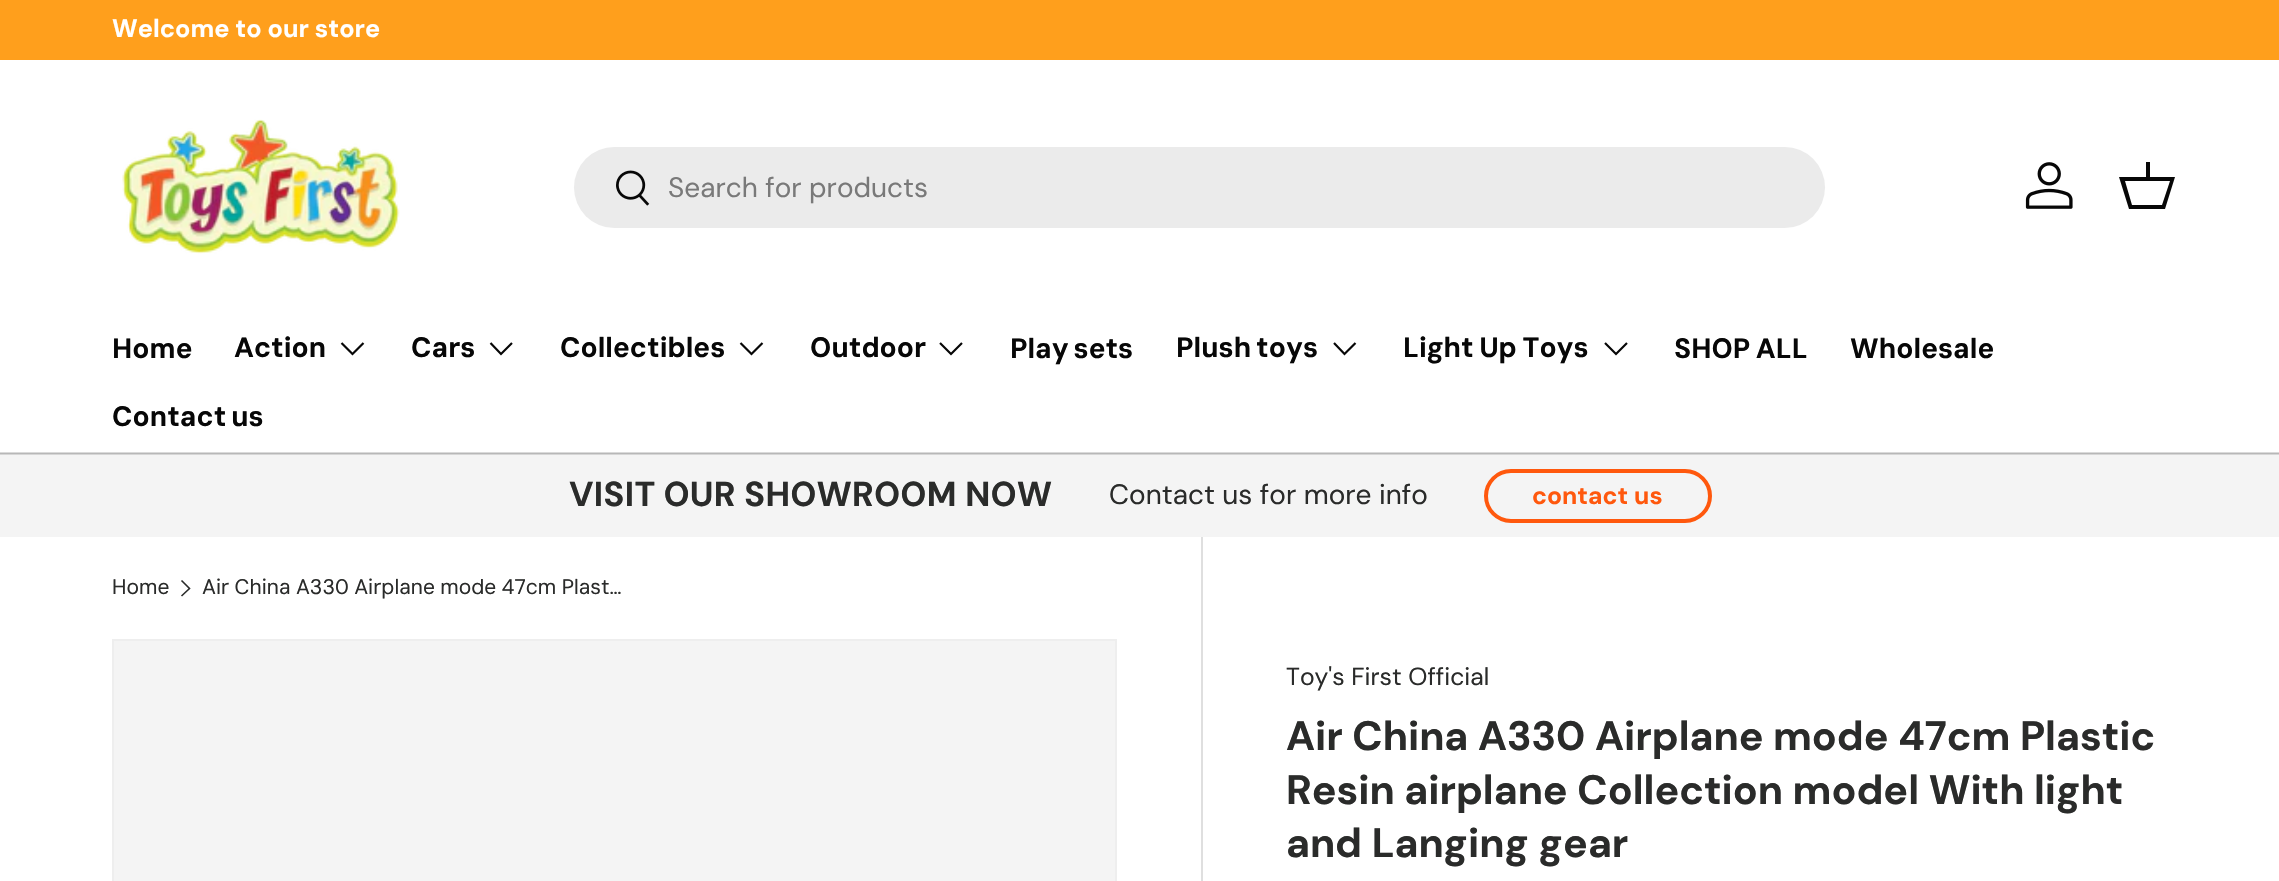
void draw(SkCanvas* canvas) {
    SkPaint paint;
    paint.setAntiAlias(true);
    auto face = [&](const char* family, int weight, float size, bool italic = false) {
        SkFontStyle style(weight, SkFontStyle::kNormal_Width,
            italic ? SkFontStyle::kItalic_Slant : SkFontStyle::kUpright_Slant);
        SkFont result(fontMgr->matchFamilyStyle(family, style), size);
        result.setSubpixel(true);
        return result;
    };
    auto write = [&](const char* s, float x, float y, const SkFont& font, SkColor color) {
        SkPaint ink(SkColor4f::FromColor(color));
        ink.setAntiAlias(true);
        canvas->drawString(s, x, y, font, ink);
    };
    auto writeSpaced = [&](const char* s, float x, float y, const SkFont& font, const SkPaint& ink, float letter, float word) {
        std::vector<SkGlyphID> glyphs(font.countText(s, strlen(s), SkTextEncoding::kUTF8));
        std::vector<float> xs(glyphs.size());
        font.textToGlyphs(s, strlen(s), SkTextEncoding::kUTF8, glyphs);
        font.getXPos(glyphs, xs, x);
        float extra = 0;
        for (size_t i = 0; i < glyphs.size(); i++) {
            xs[i] += extra;
            extra += letter + word * (glyphs[i] == font.unicharToGlyph(' '));
        }
        canvas->drawTextBlob(SkTextBlob::MakeFromPosHGlyphs(glyphs, xs, y, font), 0, 0, ink);
    };
    auto block = [&](float x, float y, float w, float h, SkColor color) {
        SkPaint ink(SkColor4f::FromColor(color));
        ink.setAntiAlias(true);
        canvas->drawRect(SkRect::MakeXYWH(x, y, w, h), ink);
    };
    auto card = [&](float x, float y, float w, float h, float radius, SkColor color) {
        SkPaint ink(SkColor4f::FromColor(color));
        ink.setAntiAlias(true);
        canvas->drawRoundRect(SkRect::MakeXYWH(x, y, w, h), radius, radius, ink);
    };
    auto paste = [&](const char* path, float x, float y, float w, float h) {
        auto image = SkImages::DeferredFromEncodedData(SkData::MakeFromFileName(path));
        canvas->drawImageRect(image, SkRect::MakeXYWH(x, y, w, h), SkSamplingOptions());
    };
    canvas->clear(SK_ColorWHITE);
    block(0, 452, 2279, 1, SkColorSetRGB(218, 218, 218));
    block(0, 0, 2279, 60, SkColorSetRGB(255, 159, 28));
    auto kFont1 = face("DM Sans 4", 700, 25.25f);
    write("Welcome to our store", 112, 37, kFont1, SK_ColorWHITE);
    paste("pic1.png", 122, 119, 278, 135);
    card(574, 147, 1251, 81, 40.5f, SkColorSetRGB(235, 235, 235));
    paste("pic2.png", 616, 170, 34, 36);
    auto kFont2 = face("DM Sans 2", 400, 28);
    write("Search for products", 668, 197, kFont2, SkColorSetRGB(121, 121, 121));
    paste("pic3.png", 2025, 162, 48, 47);
    paint.setColor(SkColorSetRGB(7, 7, 7));
    canvas->drawPath(SkPathBuilder().moveTo(2146, 177).lineTo(2146, 162).lineTo(2150, 162).lineTo(2150, 177).lineTo(2175, 177).lineTo(2165, 209).lineTo(2129, 209).lineTo(2119, 177).close().moveTo(2125, 181).lineTo(2132, 205).lineTo(2162, 205).lineTo(2170, 181).close().detach(), paint);
    auto kFont3 = face("DM Sans", 700, 28);
    write("Home", 112, 358, kFont3, SkColorSetRGB(7, 7, 7));
    write("Action", 234, 357, kFont3, SkColorSetRGB(7, 7, 7));
    paint.setStyle(SkPaint::kStroke_Style);
    paint.setStrokeWidth(2.2f);
    canvas->drawPath(SkPathBuilder().moveTo(363.5f, 343).lineTo(352.5f, 354).lineTo(341.5f, 343).detach(), paint);
    write("Cars", 411, 357, kFont3, SkColorSetRGB(7, 7, 7));
    canvas->drawPath(SkPathBuilder().moveTo(512, 343).lineTo(501, 354).lineTo(490.5f, 343).detach(), paint);
    write("Collectibles", 560, 357, kFont3, SkColorSetRGB(7, 7, 7));
    canvas->drawPath(SkPathBuilder().moveTo(762.5f, 343).lineTo(751.5f, 354).lineTo(740.5f, 343).detach(), paint);
    write("Outdoor", 810, 357, kFont3, SkColorSetRGB(7, 7, 7));
    canvas->drawPath(SkPathBuilder().moveTo(962, 343).lineTo(951, 354).lineTo(940, 343).detach(), paint);
    paint.setStyle(SkPaint::kFill_Style);
    writeSpaced("Play sets", 1010, 358, kFont3, paint, 0, -2);
    writeSpaced("Plush toys", 1176, 357, kFont3, paint, 0, -2);
    paint.setStyle(SkPaint::kStroke_Style);
    canvas->drawPath(SkPathBuilder().moveTo(1355.5f, 343).lineTo(1344.5f, 354).lineTo(1334, 343).detach(), paint);
    paint.setStyle(SkPaint::kFill_Style);
    writeSpaced("Light Up Toys", 1403, 357, kFont3, paint, 0, -1);
    paint.setStyle(SkPaint::kStroke_Style);
    canvas->drawPath(SkPathBuilder().moveTo(1627, 343).lineTo(1616, 354).lineTo(1605, 343).detach(), paint);
    paint.setStyle(SkPaint::kFill_Style);
    writeSpaced("SHOP ALL", 1674, 358, kFont3, paint, 0, -1);
    write("Wholesale", 1850, 358, kFont3, SkColorSetRGB(7, 7, 7));
    writeSpaced("Contact us", 112, 426, kFont3, paint, 0, -2);
    block(0, 455, 2279, 82, SkColorSetRGB(244, 244, 244));
    block(0, 454, 2279, 1, SkColorSetRGB(214, 214, 214));
    block(0, 453, 2279, 1, SkColorSetRGB(183, 183, 183));
    auto kFont4 = face("DM Sans", 700, 34.6f);
    write("VISIT OUR SHOWROOM NOW", 569, 506, kFont4, SkColorSetRGB(42, 43, 42));
    write("Contact us for more info", 1109, 504, kFont2, SkColorSetRGB(42, 43, 42));
    paint.setStyle(SkPaint::kStroke_Style);
    paint.setStrokeWidth(4);
    paint.setColor(SkColorSetRGB(255, 88, 13));
    canvas->drawRoundRect(SkRect::MakeXYWH(1486, 471, 224, 50), 25, 25, paint);
    auto kFont5 = face("DM Sans 2", 700, 24.75f);
    write("contact us", 1532, 504, kFont5, SkColorSetRGB(255, 88, 13));
    auto kFont6 = face("DM Sans", 400, 21);
    write("Home", 112, 594, kFont6, SkColorSetRGB(42, 43, 42));
    paint.setStrokeWidth(1.6f);
    paint.setColor(SkColorSetRGB(42, 43, 42));
    canvas->drawPath(SkPathBuilder().moveTo(181.5f, 580.5f).lineTo(189.5f, 588.5f).lineTo(181.5f, 596).detach(), paint);
    paint.setStyle(SkPaint::kFill_Style);
    writeSpaced("Air China A330 Airplane mode 47cm Plast…", 202, 594, kFont6, paint, 0, -0.25f);
    paint.setColor(SkColorSetRGB(244, 244, 244));
    canvas->drawRect(SkRect::MakeXYWH(113, 640, 1003, 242), paint);
    paint.setStyle(SkPaint::kStroke_Style);
    paint.setStrokeWidth(2);
    paint.setColor(SkColorSetRGB(238, 238, 238));
    canvas->drawRect(SkRect::MakeXYWH(113, 640, 1003, 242), paint);
    block(1201, 537, 2, 344, SkColorSetRGB(223, 223, 223));
    auto kFont7 = face("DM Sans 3", 400, 24.75f);
    write("Toy's First Official", 1286, 685, kFont7, SkColorSetRGB(42, 43, 42));
    auto kFont8 = face("DM Sans 3", 700, 41.1f);
    write("Air China A330 Airplane mode 47cm Plastic", 1286, 750, kFont8, SkColorSetRGB(42, 43, 42));
    write("Resin airplane Collection model With light", 1286, 804, kFont8, SkColorSetRGB(42, 43, 42));
    write("and Langing gear", 1286, 857, kFont8, SkColorSetRGB(42, 43, 42));
}
